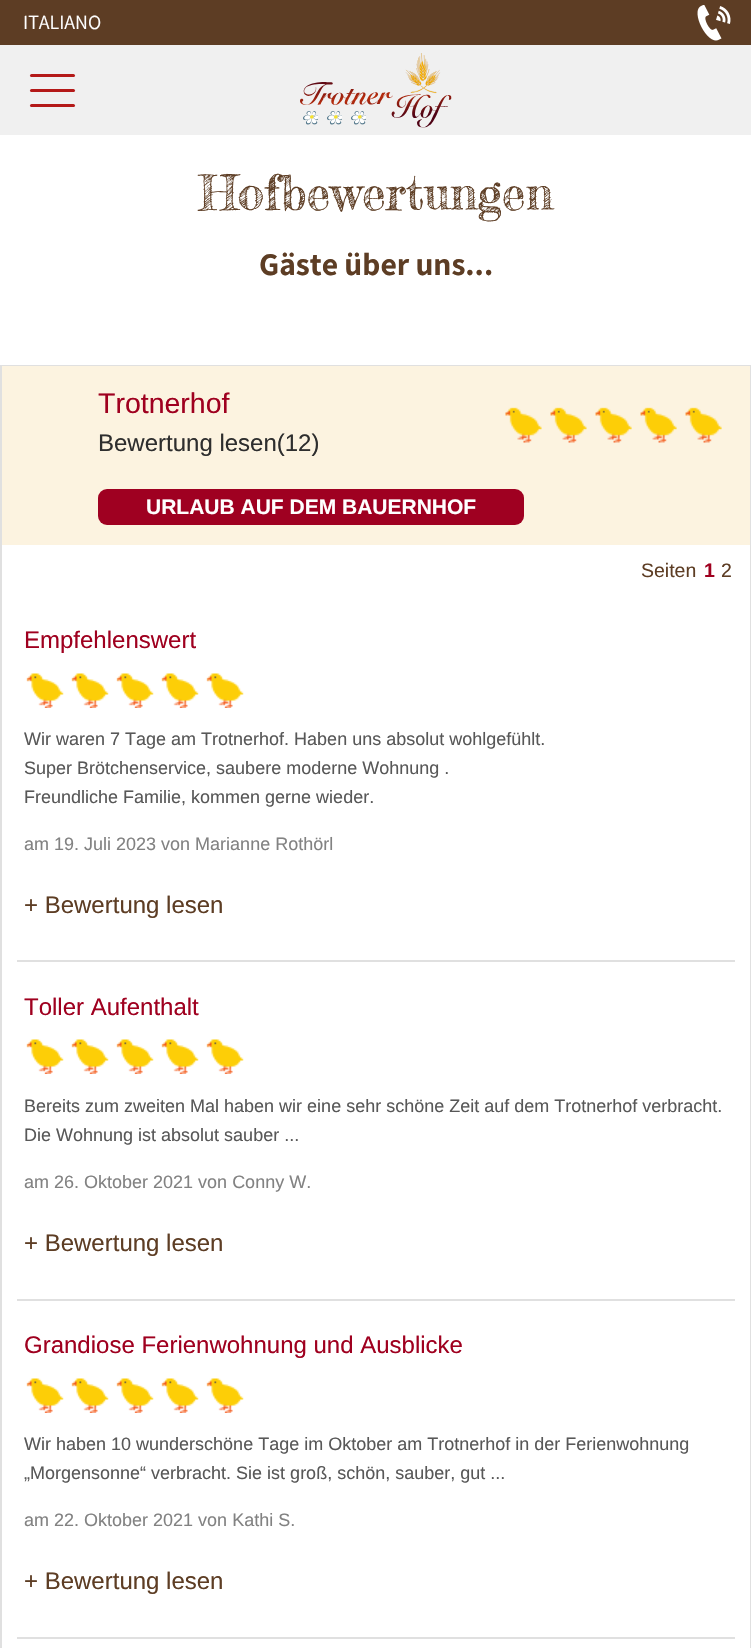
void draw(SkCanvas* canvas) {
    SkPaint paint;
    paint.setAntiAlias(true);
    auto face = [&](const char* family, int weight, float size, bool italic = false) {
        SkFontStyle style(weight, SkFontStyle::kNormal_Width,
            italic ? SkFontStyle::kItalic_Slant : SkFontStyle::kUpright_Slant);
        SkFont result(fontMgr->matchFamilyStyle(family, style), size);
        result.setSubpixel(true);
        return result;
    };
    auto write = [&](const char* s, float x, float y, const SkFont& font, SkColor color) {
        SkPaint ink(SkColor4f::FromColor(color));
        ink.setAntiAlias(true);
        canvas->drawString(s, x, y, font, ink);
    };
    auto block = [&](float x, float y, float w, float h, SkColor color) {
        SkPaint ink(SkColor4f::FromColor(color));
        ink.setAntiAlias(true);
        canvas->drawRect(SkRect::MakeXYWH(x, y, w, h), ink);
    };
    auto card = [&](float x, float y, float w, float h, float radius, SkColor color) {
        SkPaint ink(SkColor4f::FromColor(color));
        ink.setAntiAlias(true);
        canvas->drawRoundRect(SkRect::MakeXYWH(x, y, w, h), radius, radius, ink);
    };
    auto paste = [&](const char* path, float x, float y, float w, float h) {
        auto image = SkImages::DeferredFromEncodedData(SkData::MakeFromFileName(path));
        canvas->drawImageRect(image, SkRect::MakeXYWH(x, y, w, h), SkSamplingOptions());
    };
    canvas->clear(SK_ColorWHITE);
    block(0, 0, 751, 45, SkColorSetRGB(93, 61, 36));
    auto kFont1 = face("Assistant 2", 200, 20);
    write("ITALIANO", 23, 29, kFont1, SK_ColorWHITE);
    paste("pic1.png", 697, 5, 34, 36);
    block(0, 45, 751, 90, SkColorSetRGB(240, 240, 240));
    card(30, 74, 45, 3, 1.5f, SkColorSetRGB(180, 25, 24));
    card(30, 89, 45, 3, 1.5f, SkColorSetRGB(180, 25, 24));
    card(30, 104, 45, 3, 1.5f, SkColorSetRGB(180, 25, 24));
    paste("pic2.png", 300, 53, 152, 75);
    paste("pic3.png", 303, 111, 15, 14);
    paste("pic3.png", 327, 111, 15, 14);
    paste("pic3.png", 351, 111, 15, 14);
    auto kFont2 = face("Fredericka the Great", 400, 47.5f);
    write("Hofbewertungen", 199, 210, kFont2, SkColorSetRGB(93, 61, 36));
    auto kFont3 = face("Assistant", 200, 31.75f);
    write("Gäste über uns...", 259, 275, kFont3, SkColorSetRGB(93, 61, 36));
    paint.setStyle(SkPaint::kStroke_Style);
    paint.setStrokeWidth(2);
    paint.setColor(SkColorSetRGB(224, 224, 224));
    canvas->drawRect(SkRect::MakeXYWH(1, 366, 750, 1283), paint);
    block(2, 366, 748, 179, SkColorSetRGB(252, 243, 224));
    auto kFont4 = face("Liberation Sans", 400, 28.5f);
    write("Trotnerhof", 98, 413, kFont4, SkColorSetRGB(159, 0, 31));
    auto kFont5 = face("Liberation Sans", 400, 24);
    write("Bewertung lesen(12)", 98, 451, kFont5, SkColorSetRGB(46, 46, 46));
    paste("pic4.png", 505, 407, 37, 36);
    paste("pic5.png", 550, 407, 37, 36);
    paste("pic6.png", 595, 407, 37, 36);
    paste("pic6.png", 640, 407, 37, 36);
    paste("pic6.png", 685, 407, 37, 36);
    card(98, 489, 426, 36, 9, SkColorSetRGB(159, 0, 33));
    auto kFont6 = face("Liberation Sans", 700, 21);
    write("URLAUB AUF DEM BAUERNHOF", 146, 514, kFont6, SK_ColorWHITE);
    auto kFont7 = face("Liberation Sans", 400, 19.5f);
    write("Seiten", 641, 577, kFont7, SkColorSetRGB(93, 61, 36));
    auto kFont8 = face("Liberation Sans", 700, 19.5f);
    write("1", 704, 577, kFont8, SkColorSetRGB(159, 0, 31));
    write("2", 721, 577, kFont7, SkColorSetRGB(93, 61, 36));
    block(17, 960, 718, 2, SkColorSetRGB(224, 224, 224));
    write("Empfehlenswert", 24, 648, kFont5, SkColorSetRGB(159, 0, 31));
    paste("pic7.png", 26, 673, 38, 35);
    paste("pic7.png", 71, 673, 38, 35);
    paste("pic7.png", 116, 673, 38, 35);
    paste("pic7.png", 161, 673, 38, 35);
    paste("pic7.png", 206, 673, 38, 35);
    auto kFont9 = face("Liberation Sans", 400, 18);
    write("Wir waren 7 Tage am Trotnerhof. Haben uns absolut wohlgefühlt.", 24, 745, kFont9, SkColorSetRGB(88, 88, 88));
    write("Super Brötchenservice, saubere moderne Wohnung .", 24, 774, kFont9, SkColorSetRGB(88, 88, 88));
    write("Freundliche Familie, kommen gerne wieder.", 24, 803, kFont9, SkColorSetRGB(88, 88, 88));
    write("am 19. Juli 2023 von Marianne Rothörl", 24, 850, kFont9, SkColorSetRGB(130, 130, 130));
    write("+ Bewertung lesen", 24, 913, kFont5, SkColorSetRGB(93, 61, 36));
    block(17, 1299, 718, 2, SkColorSetRGB(224, 224, 224));
    write("Toller Aufenthalt", 24, 1015, kFont5, SkColorSetRGB(159, 0, 31));
    paste("pic7.png", 26, 1039, 38, 35);
    paste("pic7.png", 71, 1039, 38, 35);
    paste("pic7.png", 116, 1039, 38, 35);
    paste("pic7.png", 161, 1039, 38, 35);
    paste("pic7.png", 206, 1039, 38, 35);
    write("Bereits zum zweiten Mal haben wir eine sehr schöne Zeit auf dem Trotnerhof verbracht.", 24, 1112, kFont9, SkColorSetRGB(88, 88, 88));
    write("Die Wohnung ist absolut sauber ...", 24, 1141, kFont9, SkColorSetRGB(88, 88, 88));
    write("am 26. Oktober 2021 von Conny W.", 24, 1188, kFont9, SkColorSetRGB(130, 130, 130));
    write("+ Bewertung lesen", 24, 1251, kFont5, SkColorSetRGB(93, 61, 36));
    block(17, 1637, 718, 2, SkColorSetRGB(224, 224, 224));
    write("Grandiose Ferienwohnung und Ausblicke", 24, 1353, kFont5, SkColorSetRGB(159, 0, 31));
    paste("pic7.png", 26, 1378, 38, 35);
    paste("pic7.png", 71, 1378, 38, 35);
    paste("pic7.png", 116, 1378, 38, 35);
    paste("pic7.png", 161, 1378, 38, 35);
    paste("pic7.png", 206, 1378, 38, 35);
    write("Wir haben 10 wunderschöne Tage im Oktober am Trotnerhof in der Ferienwohnung", 24, 1450, kFont9, SkColorSetRGB(88, 88, 88));
    write("„Morgensonne“ verbracht. Sie ist groß, schön, sauber, gut ...", 24, 1479, kFont9, SkColorSetRGB(88, 88, 88));
    write("am 22. Oktober 2021 von Kathi S.", 24, 1526, kFont9, SkColorSetRGB(130, 130, 130));
    write("+ Bewertung lesen", 24, 1589, kFont5, SkColorSetRGB(93, 61, 36));
}
